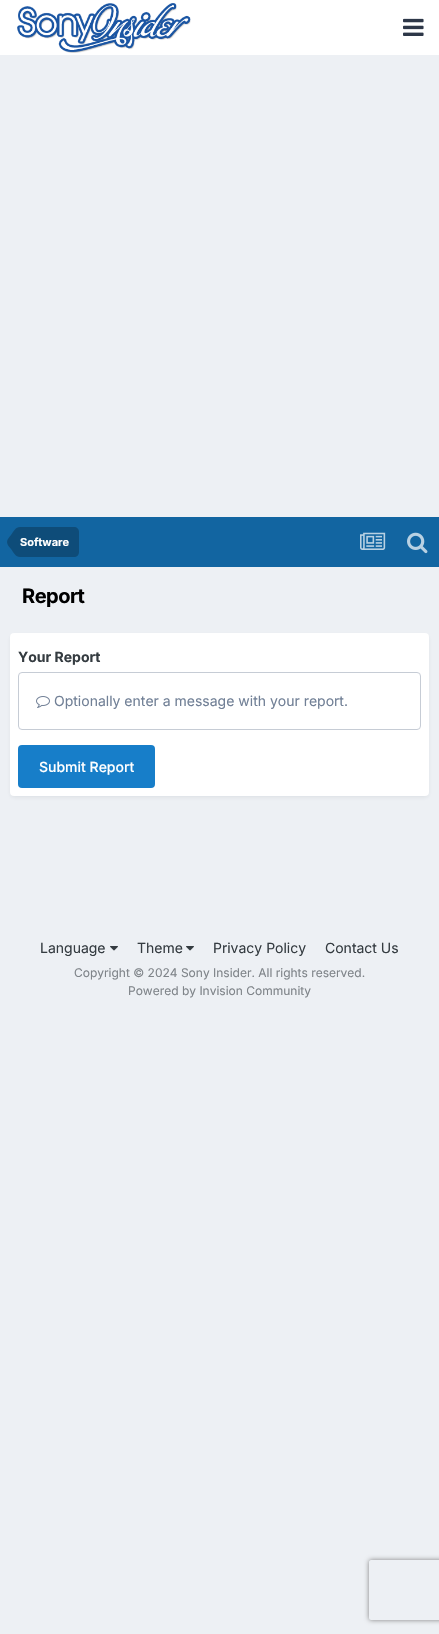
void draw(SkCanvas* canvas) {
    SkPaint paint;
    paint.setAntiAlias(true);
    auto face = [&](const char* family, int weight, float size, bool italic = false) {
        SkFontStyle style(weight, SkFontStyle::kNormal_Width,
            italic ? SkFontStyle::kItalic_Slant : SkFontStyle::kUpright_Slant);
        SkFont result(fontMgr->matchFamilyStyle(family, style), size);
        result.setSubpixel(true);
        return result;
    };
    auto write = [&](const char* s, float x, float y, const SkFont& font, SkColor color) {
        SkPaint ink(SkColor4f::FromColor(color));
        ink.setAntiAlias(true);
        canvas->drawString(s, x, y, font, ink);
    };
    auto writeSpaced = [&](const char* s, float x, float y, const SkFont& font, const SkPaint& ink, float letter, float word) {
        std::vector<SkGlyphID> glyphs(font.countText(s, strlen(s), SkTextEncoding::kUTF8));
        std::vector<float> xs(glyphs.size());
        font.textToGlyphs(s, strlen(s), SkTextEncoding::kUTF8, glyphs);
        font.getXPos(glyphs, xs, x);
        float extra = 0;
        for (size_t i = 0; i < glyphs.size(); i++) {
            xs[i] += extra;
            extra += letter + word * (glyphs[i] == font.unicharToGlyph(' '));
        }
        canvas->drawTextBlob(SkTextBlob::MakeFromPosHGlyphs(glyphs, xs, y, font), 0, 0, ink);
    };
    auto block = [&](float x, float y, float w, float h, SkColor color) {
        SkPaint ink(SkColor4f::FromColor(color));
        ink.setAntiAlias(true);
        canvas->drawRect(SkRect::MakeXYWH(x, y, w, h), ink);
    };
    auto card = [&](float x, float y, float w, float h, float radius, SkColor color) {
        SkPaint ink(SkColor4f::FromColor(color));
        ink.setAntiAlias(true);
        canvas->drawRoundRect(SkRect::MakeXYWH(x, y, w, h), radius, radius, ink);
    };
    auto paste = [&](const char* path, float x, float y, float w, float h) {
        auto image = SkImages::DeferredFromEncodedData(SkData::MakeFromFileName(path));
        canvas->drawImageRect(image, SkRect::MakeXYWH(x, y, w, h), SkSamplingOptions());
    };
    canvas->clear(SkColorSetRGB(237, 240, 244));
    block(0, 0, 439, 55, SK_ColorWHITE);
    paste("pic1.png", 17, 3, 174, 50);
    paste("pic2.png", 403, 18, 21, 18);
    block(0, 517, 439, 50, SkColorSetRGB(18, 101, 161));
    paint.setColor(SkColorSetRGB(14, 76, 121));
    canvas->drawPath(SkPathBuilder().moveTo(20, 527).lineTo(74, 527).cubicTo(77, 527, 79, 529, 79, 532).lineTo(79, 552).cubicTo(79, 555, 77, 557, 74, 557).lineTo(20, 557).close().detach(), paint);
    canvas->drawPath(SkPathBuilder().moveTo(20, 542).lineTo(20, 557).cubicTo(15.5f, 557, 13.5f, 552.5f, 11, 549).cubicTo(9.5f, 547, 7, 545, 7, 542).close().moveTo(20, 542).lineTo(7, 542).cubicTo(7, 539, 9.5f, 537, 11, 535).cubicTo(13.5f, 531.5f, 15.5f, 527, 20, 527).close().detach(), paint);
    auto kFont1 = face("Inter", 700, 11);
    write("Software", 20, 546, kFont1, SK_ColorWHITE);
    paste("pic3.png", 360, 532, 26, 18);
    paste("pic4.png", 407, 532, 21, 22);
    auto kFont2 = face("Inter", 700, 20);
    paint.setColor(SK_ColorBLACK);
    writeSpaced("Report", 22, 603, kFont2, paint, -0.5f, 0);
    paint.setColor(SkColorSetARGB(26, 45, 55, 72));
    paint.setMaskFilter(SkMaskFilter::MakeBlur(kNormal_SkBlurStyle, 2));
    canvas->drawRoundRect(SkRect::MakeXYWH(11, 636, 417, 161), 3, 3, paint);
    paint.setMaskFilter(nullptr);
    card(10, 633, 419, 163, 4, SK_ColorWHITE);
    auto kFont3 = face("Inter", 700, 14);
    write("Your Report", 18, 662, kFont3, SkColorSetRGB(53, 60, 65));
    paint.setStyle(SkPaint::kStroke_Style);
    paint.setStrokeWidth(1);
    paint.setColor(SkColorSetRGB(198, 204, 213));
    canvas->drawRoundRect(SkRect::MakeXYWH(18.5f, 672.5f, 402, 57), 3.5f, 3.5f, paint);
    paste("pic5.png", 36, 696, 14, 12);
    auto kFont4 = face("Inter", 400, 14);
    write("Optionally enter a message with your report.", 54, 706, kFont4, SkColorSetRGB(113, 128, 150));
    card(18, 745, 137, 43, 4, SkColorSetRGB(23, 126, 201));
    auto kFont5 = face("Inter", 500, 14);
    write("Submit Report", 39, 772, kFont5, SK_ColorWHITE);
    canvas->save();
    canvas->clipPath(SkPathBuilder(SkPathFillType::kEvenOdd).moveTo(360, 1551).lineTo(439, 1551).lineTo(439, 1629).lineTo(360, 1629).close().moveTo(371, 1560).lineTo(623, 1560).cubicTo(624, 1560, 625, 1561, 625, 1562).lineTo(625, 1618).cubicTo(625, 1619, 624, 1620, 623, 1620).lineTo(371, 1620).cubicTo(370, 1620, 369, 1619, 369, 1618).lineTo(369, 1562).cubicTo(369, 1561, 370, 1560, 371, 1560).close().detach(), true);
    paint.setStyle(SkPaint::kFill_Style);
    paint.setColor(SkColorSetRGB(128, 128, 128));
    paint.setMaskFilter(SkMaskFilter::MakeBlur(kNormal_SkBlurStyle, 2.5f));
    canvas->drawRoundRect(SkRect::MakeXYWH(369, 1560, 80, 60), 2, 2, paint);
    paint.setMaskFilter(nullptr);
    canvas->restore();
    write("Language", 40, 953, kFont4, SkColorSetRGB(53, 60, 65));
    paste("pic6.png", 110, 946, 8, 5);
    write("Theme", 137, 953, kFont4, SkColorSetRGB(53, 60, 65));
    paste("pic6.png", 186, 946, 8, 5);
    write("Privacy Policy", 213, 953, kFont4, SkColorSetRGB(53, 60, 65));
    write("Contact Us", 325, 953, kFont4, SkColorSetRGB(53, 60, 65));
    auto kFont6 = face("Inter", 400, 12);
    write("Copyright © 2024 Sony Insider. All rights reserved.", 74, 977, kFont6, SkColorSetRGB(127, 132, 137));
    write("Powered by Invision Community", 128, 995, kFont6, SkColorSetRGB(127, 132, 137));
}
